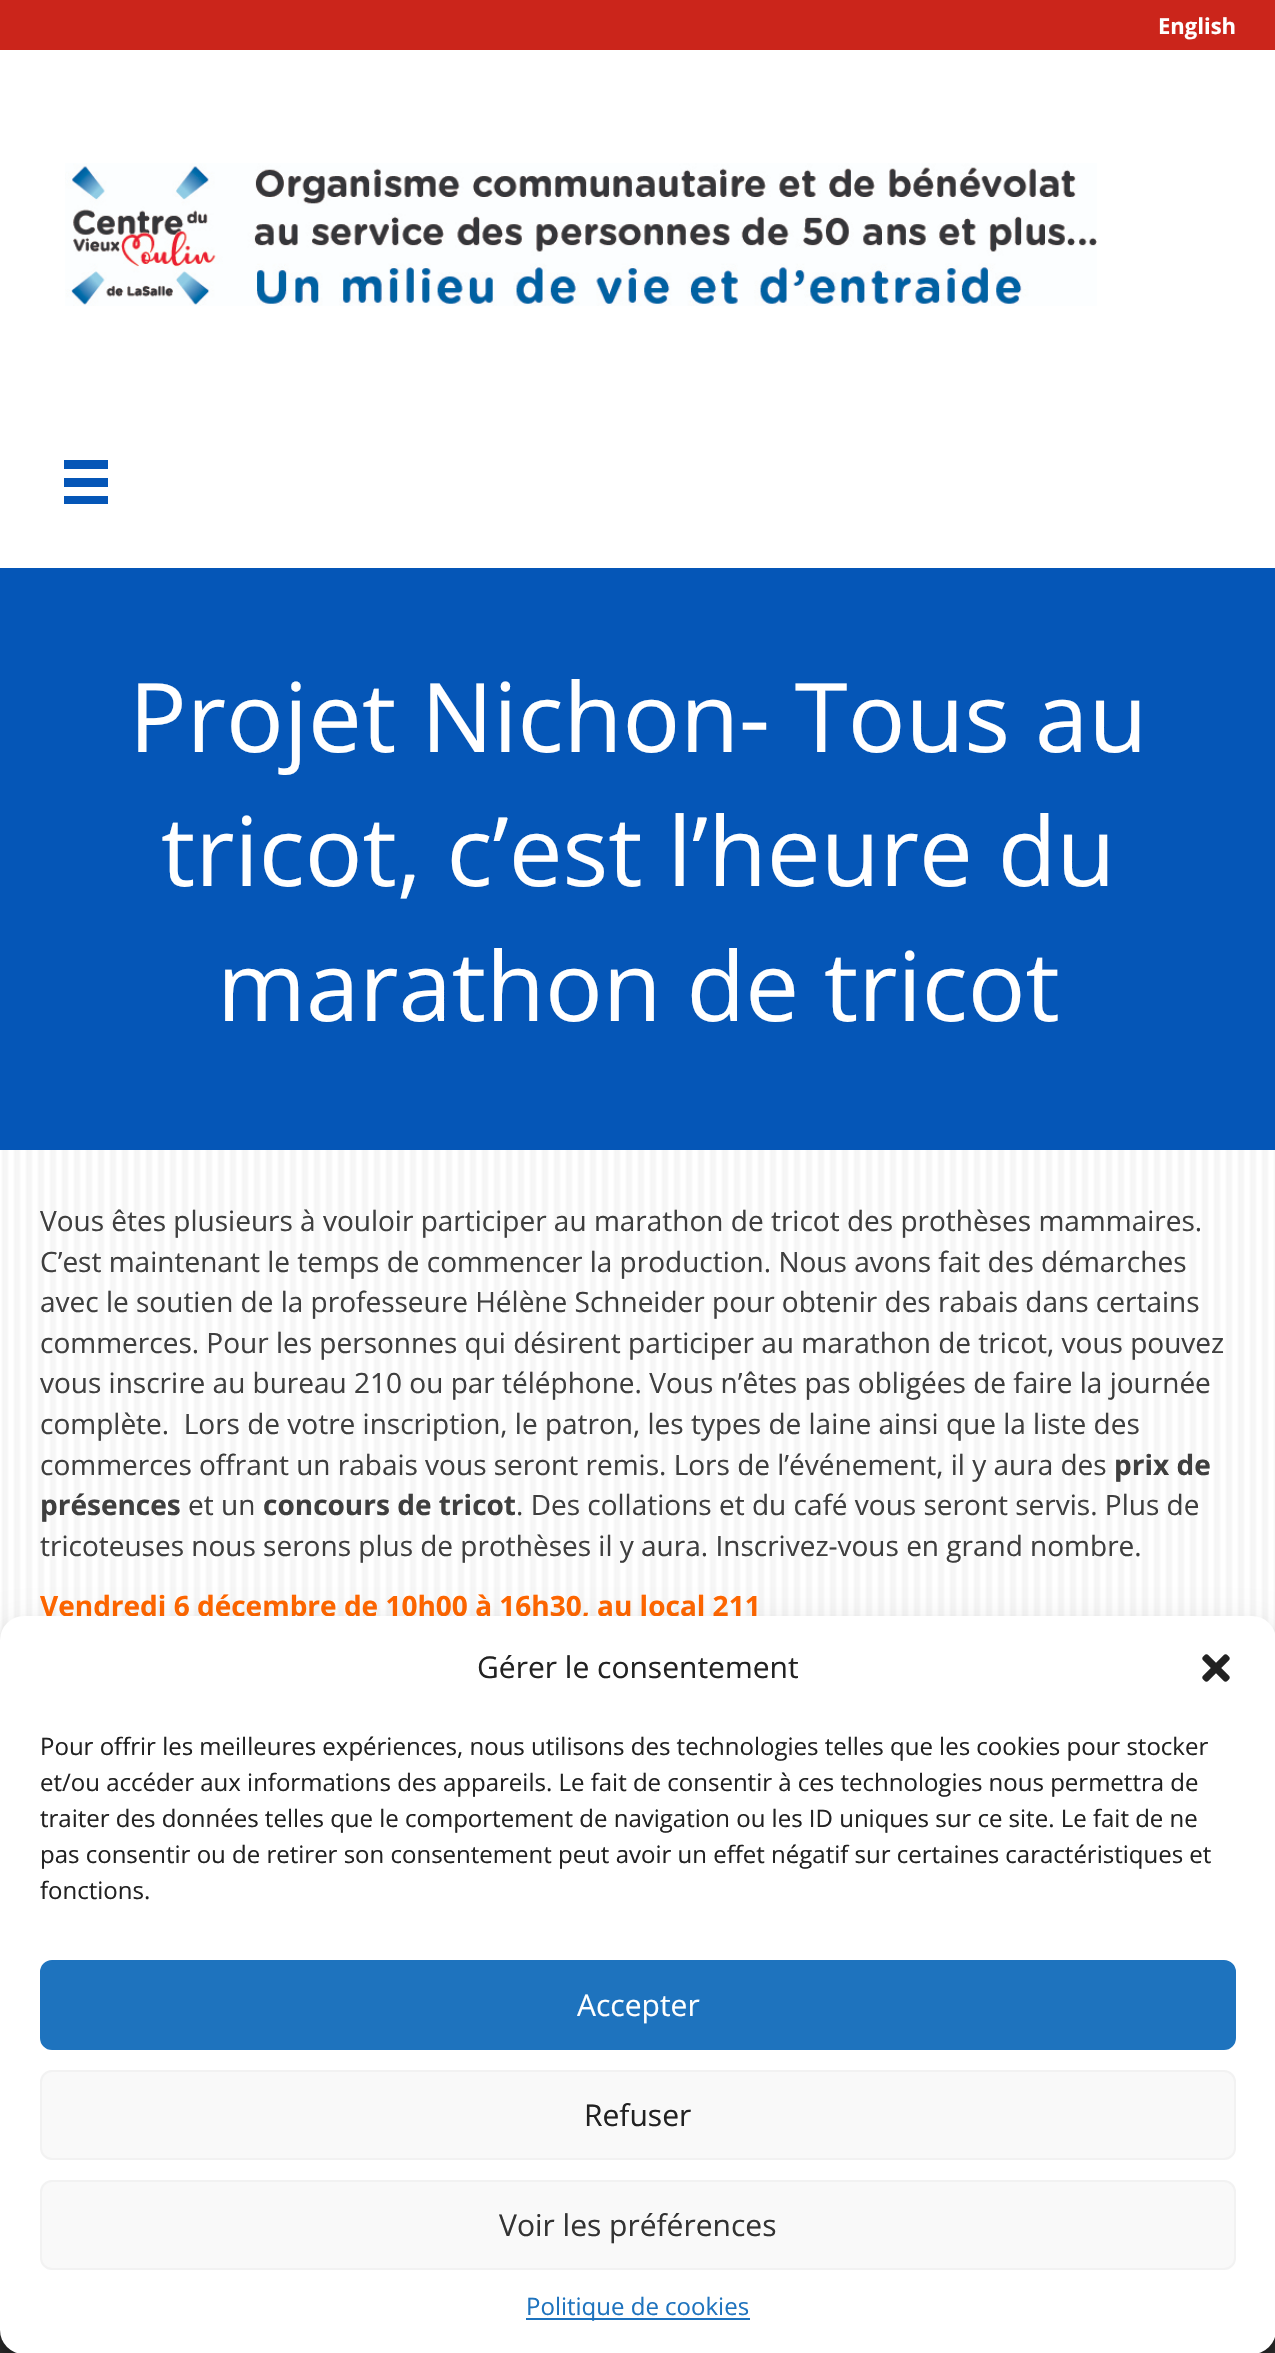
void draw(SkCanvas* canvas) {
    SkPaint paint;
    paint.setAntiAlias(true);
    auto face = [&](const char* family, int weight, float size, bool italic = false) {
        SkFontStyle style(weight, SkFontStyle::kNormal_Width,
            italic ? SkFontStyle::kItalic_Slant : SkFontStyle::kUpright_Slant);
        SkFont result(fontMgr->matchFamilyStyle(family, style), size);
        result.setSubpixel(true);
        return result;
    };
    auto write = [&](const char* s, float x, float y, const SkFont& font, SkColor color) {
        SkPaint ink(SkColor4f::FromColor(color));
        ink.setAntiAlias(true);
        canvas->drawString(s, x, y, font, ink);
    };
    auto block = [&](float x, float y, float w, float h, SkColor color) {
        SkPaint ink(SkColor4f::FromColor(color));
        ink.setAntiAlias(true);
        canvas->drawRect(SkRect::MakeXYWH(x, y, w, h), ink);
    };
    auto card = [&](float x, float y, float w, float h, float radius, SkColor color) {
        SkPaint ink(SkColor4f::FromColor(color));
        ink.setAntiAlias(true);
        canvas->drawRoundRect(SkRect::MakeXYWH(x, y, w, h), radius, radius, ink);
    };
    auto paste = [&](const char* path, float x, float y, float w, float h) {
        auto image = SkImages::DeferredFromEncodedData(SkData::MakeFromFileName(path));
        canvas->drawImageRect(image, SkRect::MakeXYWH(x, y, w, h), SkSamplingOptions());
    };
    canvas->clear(SK_ColorWHITE);
    paste("pic1.png", 0, 1150, 1275, 490);
    block(0, 0, 1275, 50, SkColorSetRGB(203, 37, 27));
    auto kFont1 = face("Open Sans", 700, 22);
    write("English", 1158, 34, kFont1, SK_ColorWHITE);
    paste("pic2.png", 65, 163, 1032, 143);
    block(64, 460, 44, 9, SkColorSetRGB(5, 86, 183));
    block(64, 478, 44, 9, SkColorSetRGB(5, 86, 183));
    block(64, 496, 44, 8, SkColorSetRGB(5, 86, 183));
    block(0, 568, 1275, 582, SkColorSetRGB(5, 86, 183));
    auto kFont2 = face("Open Sans", 400, 96);
    write("Projet Nichon- Tous au", 129, 752, kFont2, SK_ColorWHITE);
    write("tricot, c’est l’heure du", 161, 886, kFont2, SK_ColorWHITE);
    write("marathon de tricot", 217, 1021, kFont2, SK_ColorWHITE);
    auto kFont3 = face("Open Sans", 400, 28);
    write("Vous êtes plusieurs à vouloir participer au marathon de tricot des prothèses mammaires.", 40, 1231, kFont3, SkColorSetRGB(63, 63, 63));
    write("C’est maintenant le temps de commencer la production. Nous avons fait des démarches", 40, 1272, kFont3, SkColorSetRGB(63, 63, 63));
    write("avec le soutien de la professeure Hélène Schneider pour obtenir des rabais dans certains", 40, 1312, kFont3, SkColorSetRGB(63, 63, 63));
    write("commerces. Pour les personnes qui désirent participer au marathon de tricot, vous pouvez", 40, 1353, kFont3, SkColorSetRGB(63, 63, 63));
    write("vous inscrire au bureau 210 ou par téléphone. Vous n’êtes pas obligées de faire la journée", 40, 1393, kFont3, SkColorSetRGB(63, 63, 63));
    write("complète.  Lors de votre inscription, le patron, les types de laine ainsi que la liste des", 40, 1434, kFont3, SkColorSetRGB(63, 63, 63));
    write("commerces offrant un rabais vous seront remis. Lors de l’événement, il y aura des", 40, 1475, kFont3, SkColorSetRGB(63, 63, 63));
    auto kFont4 = face("Open Sans", 700, 28);
    write("prix de", 1114, 1475, kFont4, SkColorSetRGB(63, 63, 63));
    write("présences", 40, 1515, kFont4, SkColorSetRGB(63, 63, 63));
    write("et un", 188, 1515, kFont3, SkColorSetRGB(63, 63, 63));
    write("concours de tricot", 263, 1515, kFont4, SkColorSetRGB(63, 63, 63));
    write(". Des collations et du café vous seront servis. Plus de", 516, 1515, kFont3, SkColorSetRGB(63, 63, 63));
    write("tricoteuses nous serons plus de prothèses il y aura. Inscrivez-vous en grand nombre.", 40, 1556, kFont3, SkColorSetRGB(63, 63, 63));
    write("Vendredi 6 décembre de 10h00 à 16h30, au local 211", 40, 1616, kFont4, SkColorSetRGB(255, 102, 0));
    block(0, 2330, 1275, 23, SkColorSetRGB(46, 46, 46));
    paint.setColor(SkColorSetARGB(59, 0, 0, 0));
    paint.setMaskFilter(SkMaskFilter::MakeBlur(kNormal_SkBlurStyle, 6));
    canvas->drawRoundRect(SkRect::MakeXYWH(0, 1628, 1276, 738), 24, 24, paint);
    paint.setMaskFilter(nullptr);
    paint.setColor(SkColorSetARGB(48, 0, 0, 0));
    paint.setMaskFilter(SkMaskFilter::MakeBlur(kNormal_SkBlurStyle, 20));
    canvas->drawRoundRect(SkRect::MakeXYWH(0, 1636, 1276, 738), 24, 24, paint);
    paint.setMaskFilter(nullptr);
    card(0, 1616, 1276, 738, 24, SK_ColorWHITE);
    auto kFont5 = face("Open Sans", 400, 30);
    write("Gérer le consentement", 477, 1678, kFont5, SkColorSetRGB(34, 34, 34));
    paste("pic3.png", 1202, 1654, 28, 28);
    auto kFont6 = face("Open Sans", 400, 24);
    write("Pour offrir les meilleures expériences, nous utilisons des technologies telles que les cookies pour stocker", 40, 1755, kFont6, SkColorSetRGB(34, 34, 34));
    write("et/ou accéder aux informations des appareils. Le fait de consentir à ces technologies nous permettra de", 40, 1791, kFont6, SkColorSetRGB(34, 34, 34));
    write("traiter des données telles que le comportement de navigation ou les ID uniques sur ce site. Le fait de ne", 40, 1827, kFont6, SkColorSetRGB(34, 34, 34));
    write("pas consentir ou de retirer son consentement peut avoir un effet négatif sur certaines caractéristiques et", 40, 1863, kFont6, SkColorSetRGB(34, 34, 34));
    write("fonctions.", 40, 1899, kFont6, SkColorSetRGB(34, 34, 34));
    paint.setColor(SkColorSetRGB(30, 115, 190));
    canvas->drawRoundRect(SkRect::MakeXYWH(41, 1961, 1194, 88), 11, 11, paint);
    paint.setStyle(SkPaint::kStroke_Style);
    paint.setStrokeWidth(2);
    canvas->drawRoundRect(SkRect::MakeXYWH(41, 1961, 1194, 88), 11, 11, paint);
    write("Accepter", 577, 2016, kFont5, SK_ColorWHITE);
    paint.setStyle(SkPaint::kFill_Style);
    paint.setColor(SkColorSetRGB(249, 249, 249));
    canvas->drawRoundRect(SkRect::MakeXYWH(41, 2071, 1194, 88), 11, 11, paint);
    paint.setStyle(SkPaint::kStroke_Style);
    paint.setColor(SkColorSetRGB(242, 242, 242));
    canvas->drawRoundRect(SkRect::MakeXYWH(41, 2071, 1194, 88), 11, 11, paint);
    write("Refuser", 584, 2126, kFont5, SkColorSetRGB(34, 34, 34));
    paint.setStyle(SkPaint::kFill_Style);
    paint.setColor(SkColorSetRGB(249, 249, 249));
    canvas->drawRoundRect(SkRect::MakeXYWH(41, 2181, 1194, 88), 11, 11, paint);
    paint.setStyle(SkPaint::kStroke_Style);
    paint.setColor(SkColorSetRGB(242, 242, 242));
    canvas->drawRoundRect(SkRect::MakeXYWH(41, 2181, 1194, 88), 11, 11, paint);
    write("Voir les préférences", 499, 2236, kFont5, SkColorSetRGB(51, 51, 51));
    block(526, 2318, 224, 2, SkColorSetRGB(30, 115, 190));
    write("Politique de cookies", 526, 2315, kFont6, SkColorSetRGB(30, 115, 190));
}
